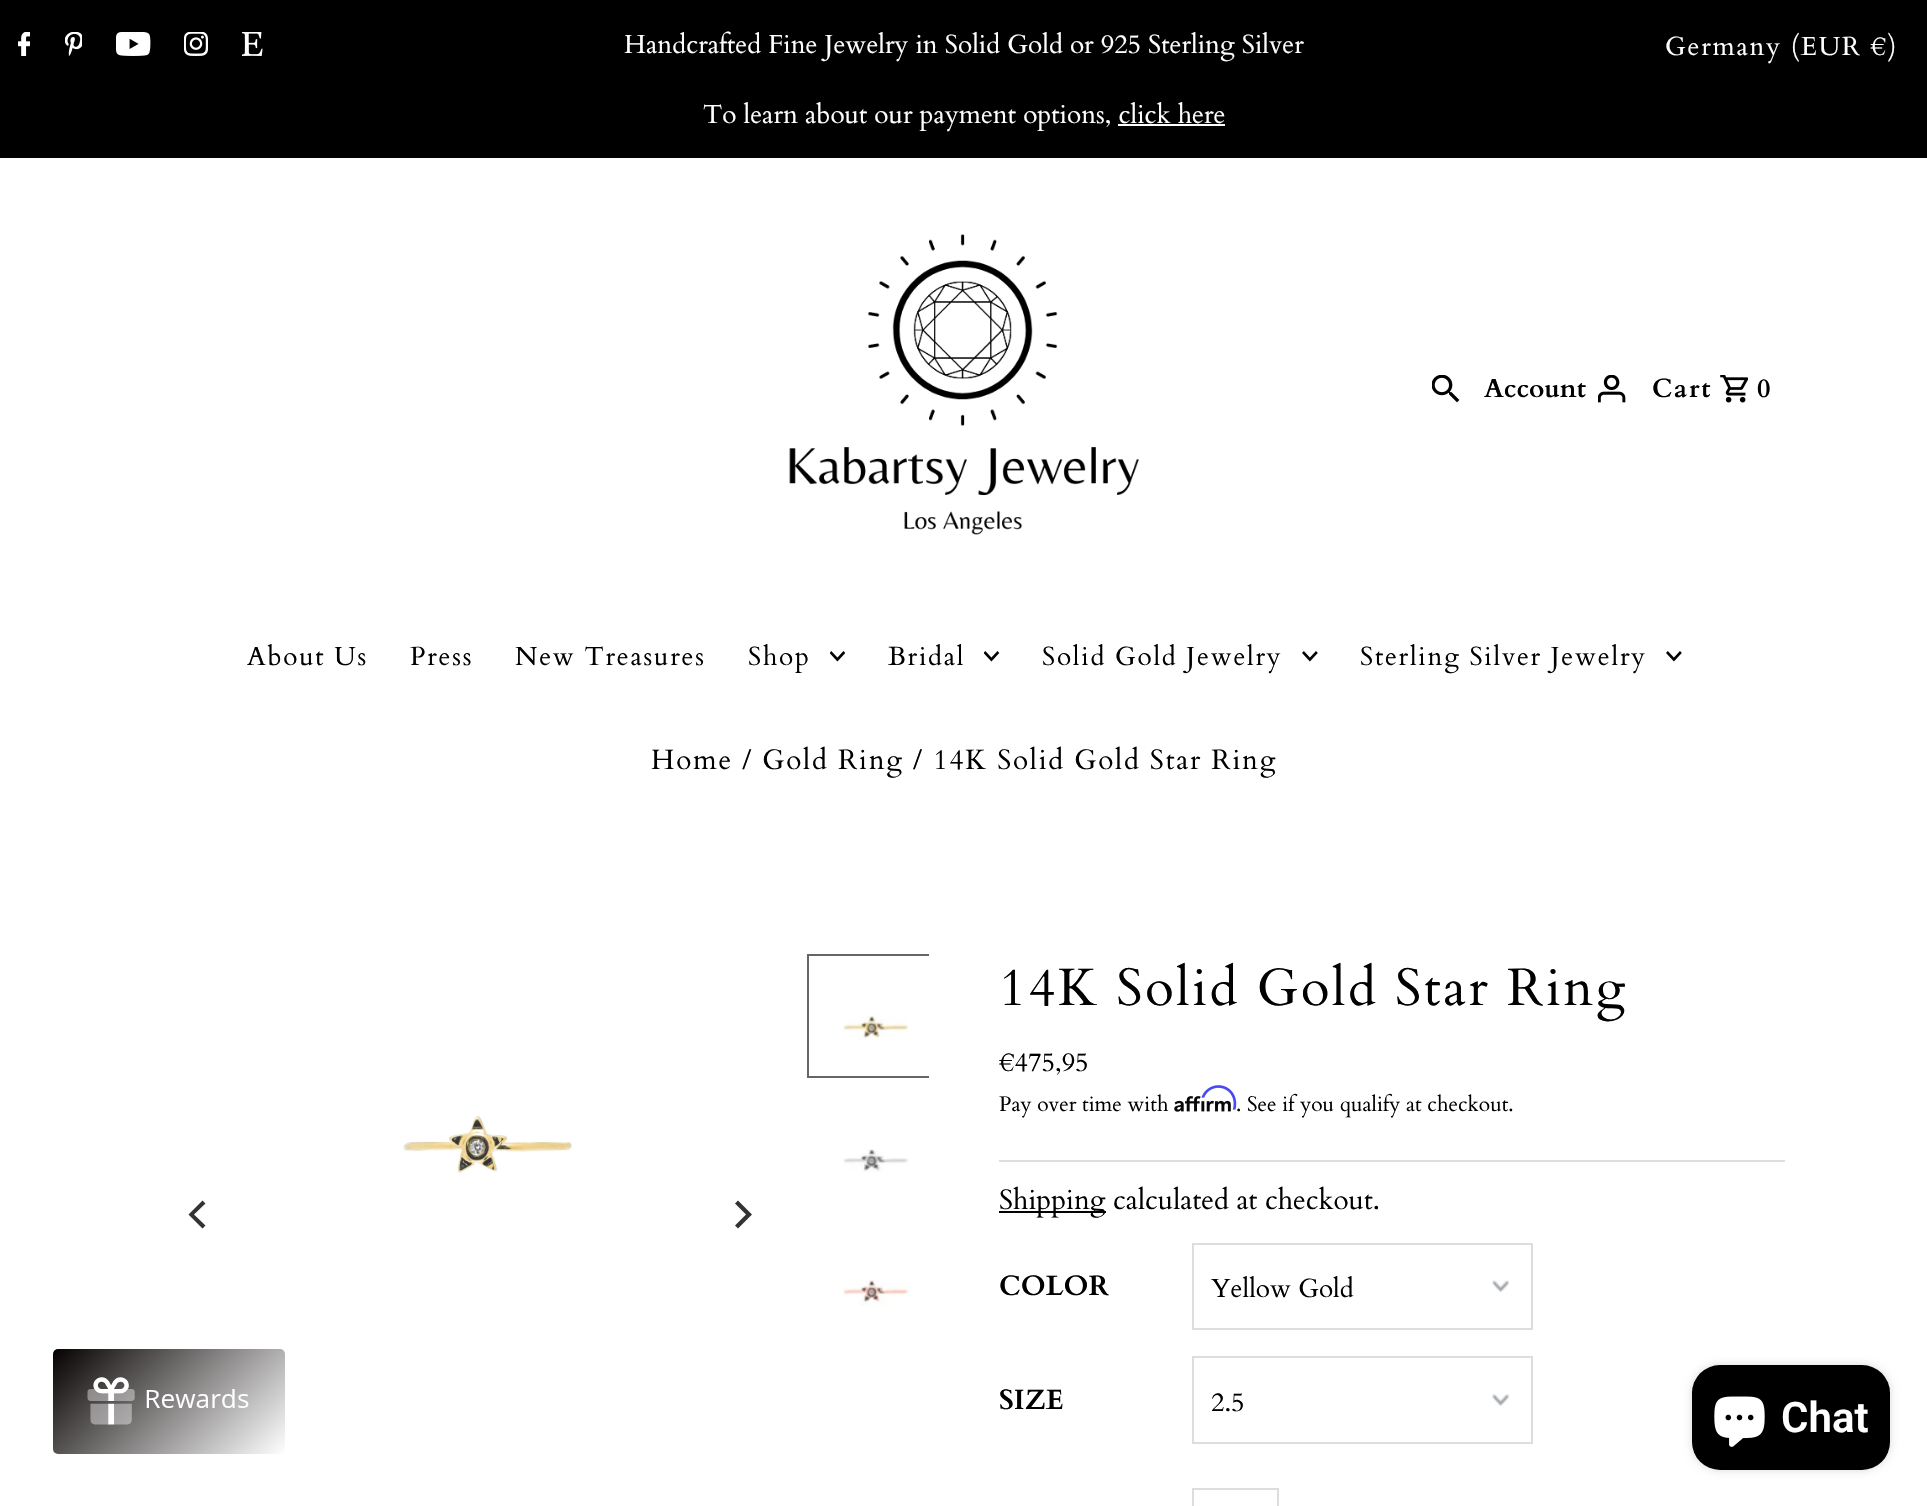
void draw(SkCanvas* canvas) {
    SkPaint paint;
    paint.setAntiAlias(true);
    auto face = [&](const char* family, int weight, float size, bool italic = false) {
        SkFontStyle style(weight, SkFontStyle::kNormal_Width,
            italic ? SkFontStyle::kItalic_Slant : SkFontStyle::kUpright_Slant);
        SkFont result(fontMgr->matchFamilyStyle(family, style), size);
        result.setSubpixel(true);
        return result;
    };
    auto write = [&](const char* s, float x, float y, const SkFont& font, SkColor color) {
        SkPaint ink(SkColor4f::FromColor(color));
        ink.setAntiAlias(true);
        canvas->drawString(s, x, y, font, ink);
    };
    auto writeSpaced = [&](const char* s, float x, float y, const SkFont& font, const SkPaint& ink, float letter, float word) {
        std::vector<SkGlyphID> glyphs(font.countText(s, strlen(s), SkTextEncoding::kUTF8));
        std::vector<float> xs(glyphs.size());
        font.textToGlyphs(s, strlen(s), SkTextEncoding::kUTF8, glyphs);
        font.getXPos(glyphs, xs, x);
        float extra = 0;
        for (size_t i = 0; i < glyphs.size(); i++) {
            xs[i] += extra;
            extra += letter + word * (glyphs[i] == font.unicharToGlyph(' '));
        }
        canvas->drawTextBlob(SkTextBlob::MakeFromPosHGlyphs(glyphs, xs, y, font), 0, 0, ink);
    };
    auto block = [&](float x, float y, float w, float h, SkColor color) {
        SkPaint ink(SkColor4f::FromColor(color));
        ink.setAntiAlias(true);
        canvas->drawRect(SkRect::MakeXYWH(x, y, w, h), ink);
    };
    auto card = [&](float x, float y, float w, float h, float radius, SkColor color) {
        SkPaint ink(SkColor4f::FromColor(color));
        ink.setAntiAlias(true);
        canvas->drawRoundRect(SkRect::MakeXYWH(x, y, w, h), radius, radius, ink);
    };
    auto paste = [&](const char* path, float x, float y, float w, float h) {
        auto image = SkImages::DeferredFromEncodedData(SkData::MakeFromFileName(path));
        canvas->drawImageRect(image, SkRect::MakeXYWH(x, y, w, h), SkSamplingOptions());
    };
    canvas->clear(SK_ColorWHITE);
    {
        const SkColor colors[] = {SkColorSetRGB(5, 0, 0), SK_ColorWHITE};
        const float stops[] = {0, 1};
        const SkPoint ends[] = {{84, 1317}, {253, 1486}};
        paint.setShader(SkGradientShader::MakeLinear(ends, colors, stops, 2, SkTileMode::kClamp));
        paint.setAlpha(255);
    }
    canvas->drawRoundRect(SkRect::MakeXYWH(53, 1349, 232, 105), 5, 5, paint);
    paste("pic1.png", 87, 1377, 162, 48);
    block(0, 0, 1927, 158, SK_ColorBLACK);
    paste("pic2.png", 18, 32, 12, 24);
    paste("pic3.png", 65, 32, 17, 24);
    paste("pic4.png", 116, 32, 35, 24);
    paste("pic5.png", 184, 32, 24, 24);
    paste("pic6.png", 242, 32, 21, 24);
    auto kFont1 = face("Cardo", 400, 26.25f);
    write("Handcrafted Fine Jewelry in Solid Gold or 925 Sterling Silver", 624, 53, kFont1, SK_ColorWHITE);
    write("To learn about our payment options, click here", 703, 123, kFont1, SK_ColorWHITE);
    block(1118, 124, 107, 2, SK_ColorWHITE);
    paint.setShader(nullptr);
    paint.setColor(SK_ColorWHITE);
    writeSpaced("Germany (EUR €)", 1665, 55, kFont1, paint, 1.75f, 0);
    paste("pic7.png", 789, 234, 350, 301);
    paste("pic8.png", 1432, 375, 28, 28);
    auto kFont2 = face("Cardo", 700, 26.25f);
    write("Account", 1484, 397, kFont2, SK_ColorBLACK);
    paste("pic9.png", 1598, 375, 28, 28);
    paint.setColor(SK_ColorBLACK);
    writeSpaced("Cart", 1652, 397, kFont2, paint, 1.75f, 0);
    paste("pic10.png", 1720, 375, 28, 28);
    writeSpaced("0", 1757, 397, kFont2, paint, 1.75f, 0);
    writeSpaced("About Us", 247, 665, kFont1, paint, 1.75f, 0);
    writeSpaced("Press", 410, 665, kFont1, paint, 1.75f, 0);
    writeSpaced("New Treasures", 515, 665, kFont1, paint, 1.75f, 0);
    writeSpaced("Shop", 748, 665, kFont1, paint, 1.75f, 0);
    paste("pic11.png", 830, 651, 15, 11);
    writeSpaced("Bridal", 888, 665, kFont1, paint, 1.75f, 0);
    paste("pic12.png", 984, 651, 16, 11);
    writeSpaced("Solid Gold Jewelry", 1042, 665, kFont1, paint, 1.75f, 0);
    paste("pic13.png", 1302, 651, 16, 11);
    writeSpaced("Sterling Silver Jewelry", 1360, 665, kFont1, paint, 1.75f, 0);
    paste("pic13.png", 1666, 651, 16, 11);
    auto kFont3 = face("Cardo", 400, 28);
    writeSpaced("Home / Gold Ring / 14K Solid Gold Star Ring", 651, 769, kFont3, paint, 1.75f, 0);
    paste("pic14.png", 403, 1115, 169, 58);
    paint.setColor(SkColorSetRGB(51, 51, 51));
    canvas->drawPath(SkPathBuilder().moveTo(188.5f, 1214.5f).lineTo(202.5f, 1228.5f).lineTo(205.5f, 1225.5f).lineTo(194, 1214.5f).lineTo(205.5f, 1203.5f).lineTo(202.5f, 1200.5f).close().detach(), paint);
    canvas->drawPath(SkPathBuilder().moveTo(752, 1214.5f).lineTo(738, 1200.5f).lineTo(735, 1203.5f).lineTo(746, 1214.5f).lineTo(735, 1225.5f).lineTo(738, 1228.5f).close().detach(), paint);
    paste("pic15.png", 843, 1015, 65, 26);
    canvas->save();
    canvas->clipRect(SkRect::MakeXYWH(805, 952, 124, 401));
    paint.setStyle(SkPaint::kStroke_Style);
    paint.setStrokeWidth(2);
    paint.setColor(SkColorSetRGB(102, 102, 102));
    canvas->drawRect(SkRect::MakeXYWH(808, 955, 122, 122), paint);
    canvas->restore();
    paste("pic16.png", 843, 1149, 66, 23);
    paste("pic17.png", 843, 1279, 67, 27);
    auto kFont4 = face("Cardo", 400, 52.5f);
    paint.setStyle(SkPaint::kFill_Style);
    paint.setColor(SK_ColorBLACK);
    writeSpaced("14K Solid Gold Star Ring", 999, 1005, kFont4, paint, 2.6f, 0);
    block(999, 1160, 786, 2, SkColorSetRGB(221, 221, 221));
    write("€475,95", 999, 1071, kFont1, SK_ColorBLACK);
    auto kFont5 = face("Cardo", 400, 21);
    write("Pay over time with", 999, 1111, kFont5, SK_ColorBLACK);
    paste("pic19.png", 1174, 1096, 57, 16);
    paste("pic18.png", 1201, 1085, 36, 25);
    write(". See if you qualify at checkout.", 1236, 1111, kFont5, SK_ColorBLACK);
    block(999, 1211, 107, 2, SK_ColorBLACK);
    write("Shipping calculated at checkout.", 999, 1209, kFont3, SK_ColorBLACK);
    auto kFont6 = face("Cardo", 700, 28);
    write("COLOR", 999, 1295, kFont6, SK_ColorBLACK);
    paste("pic20.png", 1492, 1280, 17, 12);
    paint.setStyle(SkPaint::kStroke_Style);
    paint.setColor(SkColorSetRGB(221, 221, 221));
    canvas->drawRect(SkRect::MakeXYWH(1193, 1244, 339, 85), paint);
    write("Yellow Gold", 1211, 1297, kFont1, SK_ColorBLACK);
    write("SIZE", 999, 1409, kFont6, SK_ColorBLACK);
    paste("pic21.png", 1492, 1394, 17, 12);
    canvas->drawRect(SkRect::MakeXYWH(1193, 1357, 339, 86), paint);
    write("2.5", 1211, 1411, kFont1, SK_ColorBLACK);
    canvas->drawRect(SkRect::MakeXYWH(1193, 1489, 85, 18), paint);
    paint.setStyle(SkPaint::kFill_Style);
    paint.setColor(SkColorSetARGB(38, 0, 0, 0));
    paint.setMaskFilter(SkMaskFilter::MakeBlur(kNormal_SkBlurStyle, 4.5f));
    canvas->drawRoundRect(SkRect::MakeXYWH(1692, 1365, 198, 105), 28, 28, paint);
    paint.setMaskFilter(nullptr);
    card(1692, 1365, 198, 105, 28, SK_ColorBLACK);
    paste("pic22.png", 1714, 1396, 51, 51);
    auto kFont7 = face("Roboto", 600, 42);
    write("Chat", 1781, 1432, kFont7, SK_ColorWHITE);
}
